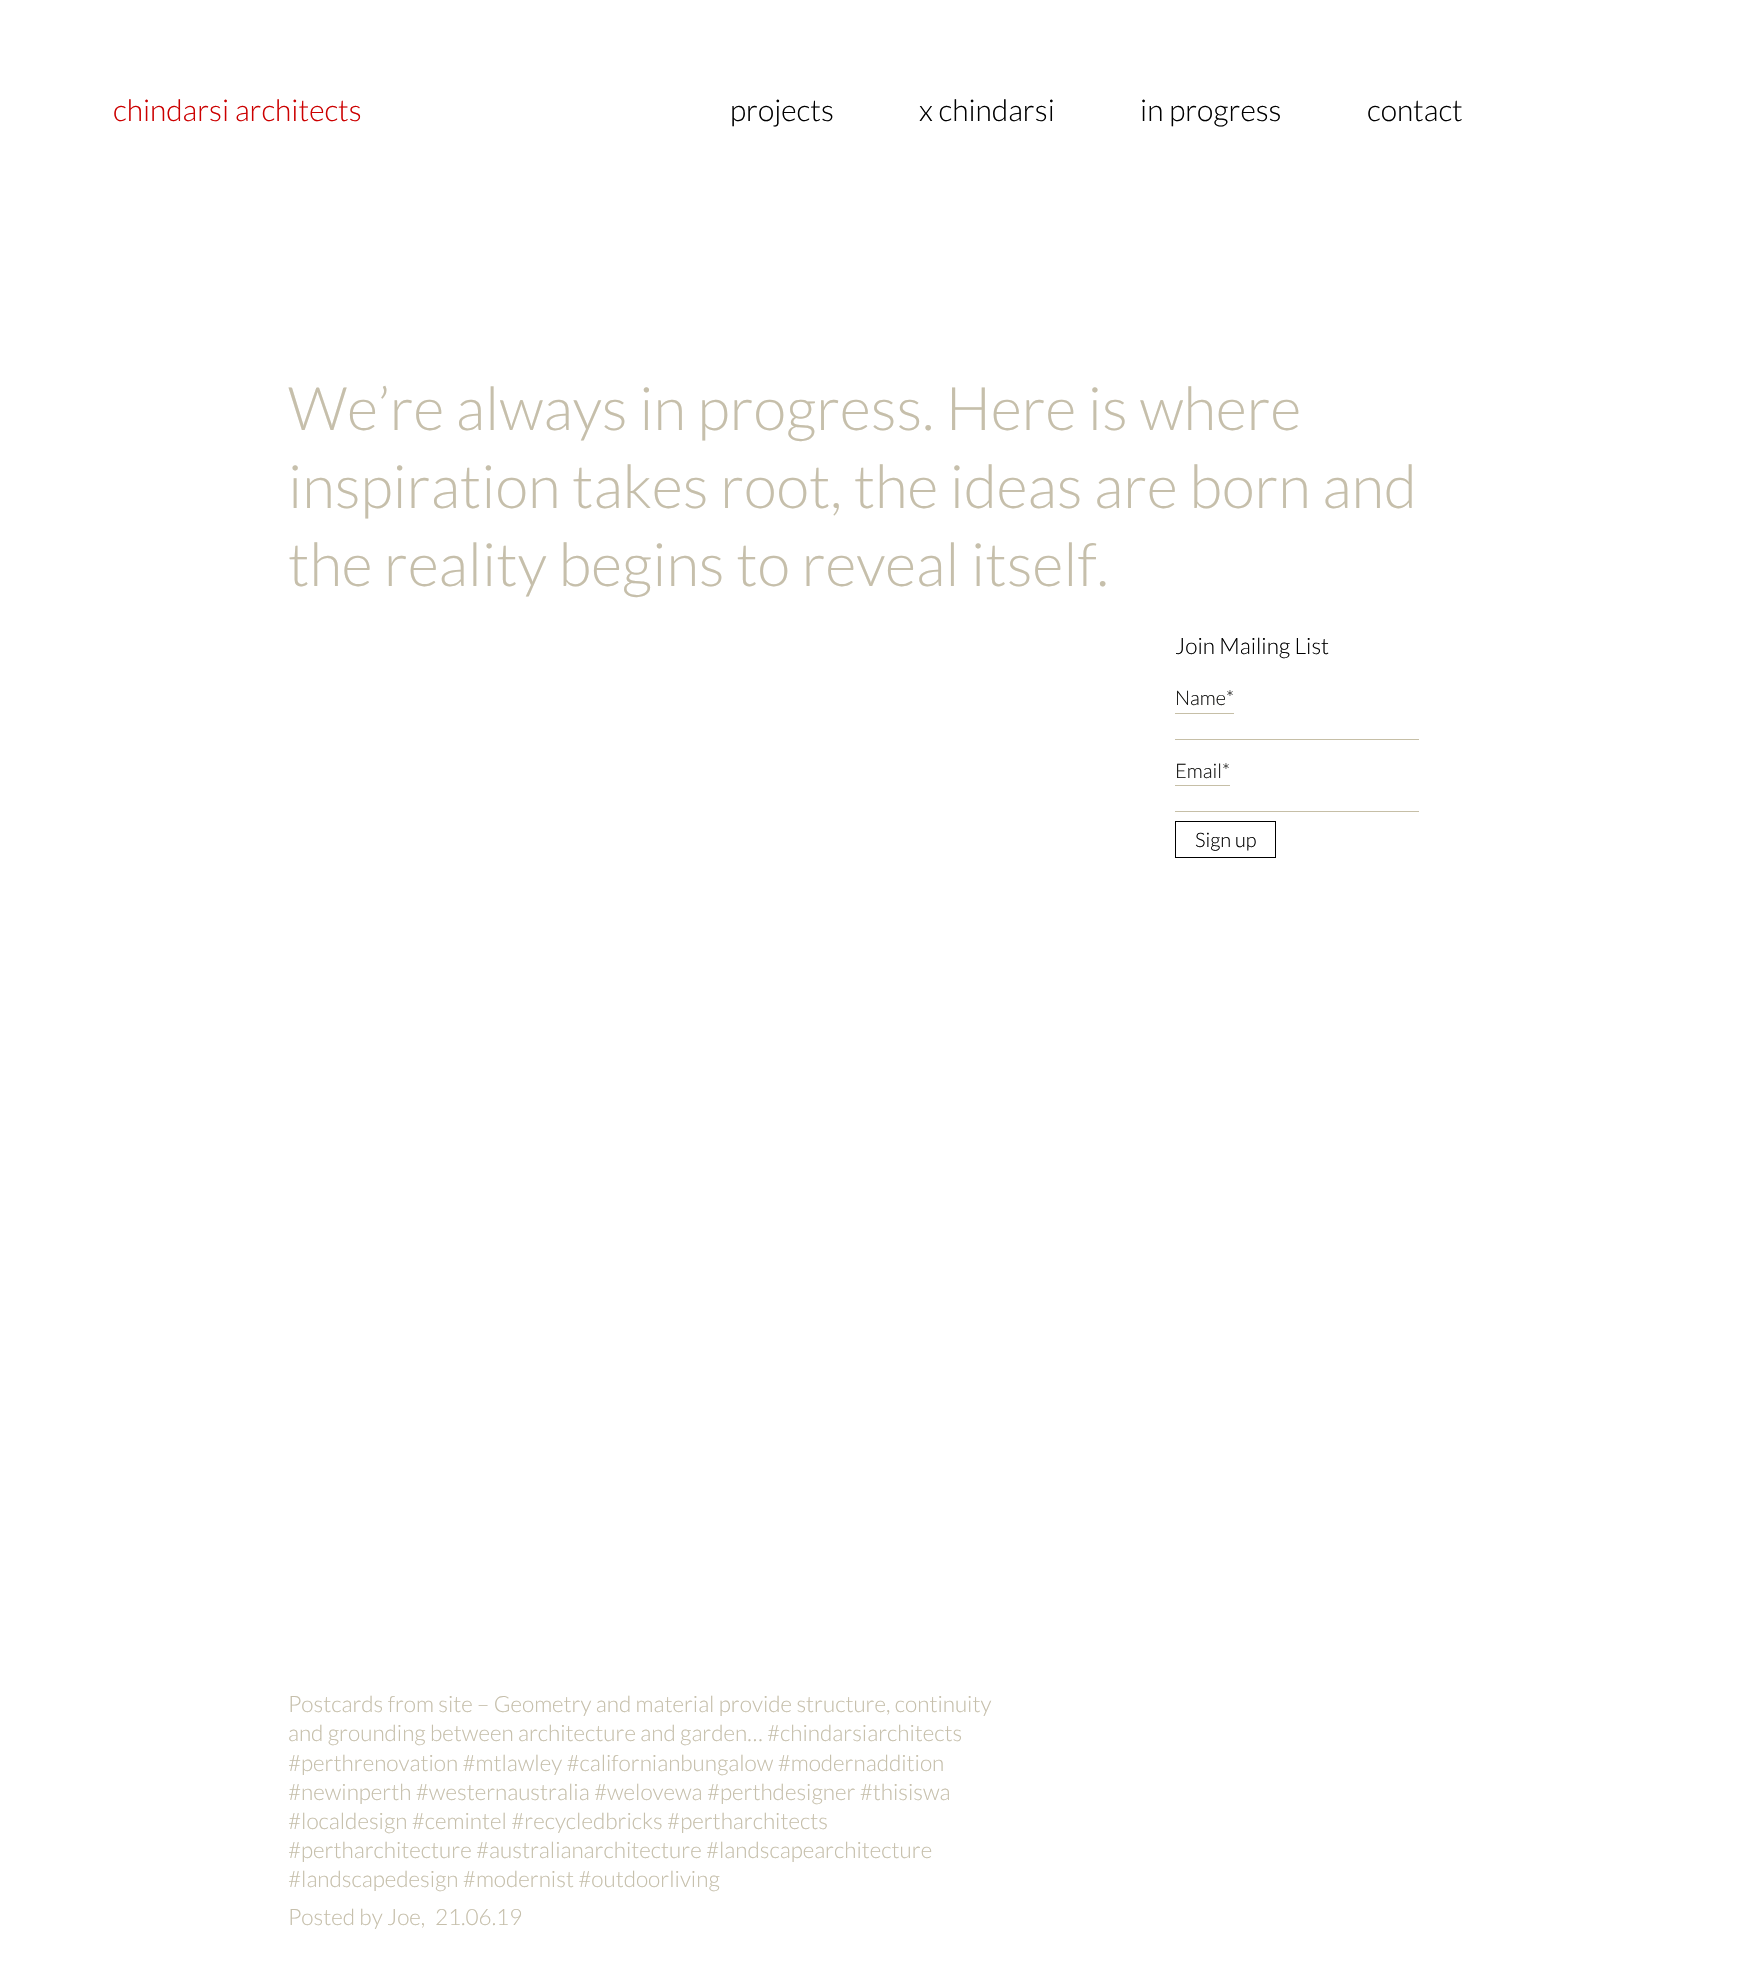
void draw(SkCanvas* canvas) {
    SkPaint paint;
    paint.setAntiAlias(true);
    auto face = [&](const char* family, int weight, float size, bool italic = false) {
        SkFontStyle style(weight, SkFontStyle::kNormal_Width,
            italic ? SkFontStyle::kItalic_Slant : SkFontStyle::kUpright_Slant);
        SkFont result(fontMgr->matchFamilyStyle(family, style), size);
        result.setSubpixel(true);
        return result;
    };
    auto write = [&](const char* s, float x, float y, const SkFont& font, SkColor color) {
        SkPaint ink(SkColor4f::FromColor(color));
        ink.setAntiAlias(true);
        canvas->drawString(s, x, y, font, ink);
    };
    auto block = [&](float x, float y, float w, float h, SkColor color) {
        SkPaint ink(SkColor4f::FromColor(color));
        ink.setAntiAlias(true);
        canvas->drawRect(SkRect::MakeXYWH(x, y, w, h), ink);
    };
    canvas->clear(SK_ColorWHITE);
    auto kFont1 = face("Lato", 300, 30);
    write("chindarsi architects", 113, 121, kFont1, SkColorSetRGB(204, 0, 0));
    write("projects", 730, 121, kFont1, SK_ColorBLACK);
    write("x chindarsi", 919, 121, kFont1, SK_ColorBLACK);
    write("in progress", 1140, 121, kFont1, SK_ColorBLACK);
    write("contact", 1367, 121, kFont1, SK_ColorBLACK);
    auto kFont2 = face("Lato", 300, 60);
    write("We’re always in progress. Here is where", 288, 430, kFont2, SkColorSetRGB(198, 191, 171));
    write("inspiration takes root, the ideas are born and", 288, 508, kFont2, SkColorSetRGB(198, 191, 171));
    write("the reality begins to reveal itself.", 288, 586, kFont2, SkColorSetRGB(198, 191, 171));
    auto kFont3 = face("Lato", 300, 22.5f);
    write("Postcards from site – Geometry and material provide structure, continuity", 288, 1712, kFont3, SkColorSetRGB(198, 191, 171));
    write("and grounding between architecture and garden… #chindarsiarchitects", 288, 1741, kFont3, SkColorSetRGB(198, 191, 171));
    write("#perthrenovation #mtlawley #californianbungalow #modernaddition", 288, 1771, kFont3, SkColorSetRGB(198, 191, 171));
    write("#newinperth #westernaustralia #welovewa #perthdesigner #thisiswa", 288, 1800, kFont3, SkColorSetRGB(198, 191, 171));
    write("#localdesign #cemintel #recycledbricks #pertharchitects", 288, 1829, kFont3, SkColorSetRGB(198, 191, 171));
    write("#pertharchitecture #australianarchitecture #landscapearchitecture", 288, 1858, kFont3, SkColorSetRGB(198, 191, 171));
    write("#landscapedesign #modernist #outdoorliving", 288, 1887, kFont3, SkColorSetRGB(198, 191, 171));
    write("Posted by Joe,", 288, 1925, kFont3, SkColorSetRGB(198, 191, 171));
    write("21.06.19", 435, 1925, kFont3, SkColorSetRGB(198, 191, 171));
    write("Join Mailing List", 1175, 654, kFont3, SK_ColorBLACK);
    auto kFont4 = face("Lato", 300, 20);
    write("Name*", 1175, 705, kFont4, SkColorSetRGB(20, 20, 18));
    block(1175, 713, 59, 1, SkColorSetRGB(198, 191, 167));
    block(1175, 739, 244, 1, SkColorSetRGB(198, 191, 167));
    write("Email*", 1175, 778, kFont4, SkColorSetRGB(20, 20, 18));
    block(1175, 785, 55, 1, SkColorSetRGB(198, 191, 167));
    block(1175, 811, 244, 1, SkColorSetRGB(198, 191, 167));
    paint.setStyle(SkPaint::kStroke_Style);
    paint.setStrokeWidth(1);
    paint.setColor(SK_ColorBLACK);
    canvas->drawRect(SkRect::MakeXYWH(1175.5f, 821.5f, 100, 36), paint);
    write("Sign up", 1195, 847, kFont4, SK_ColorBLACK);
}
